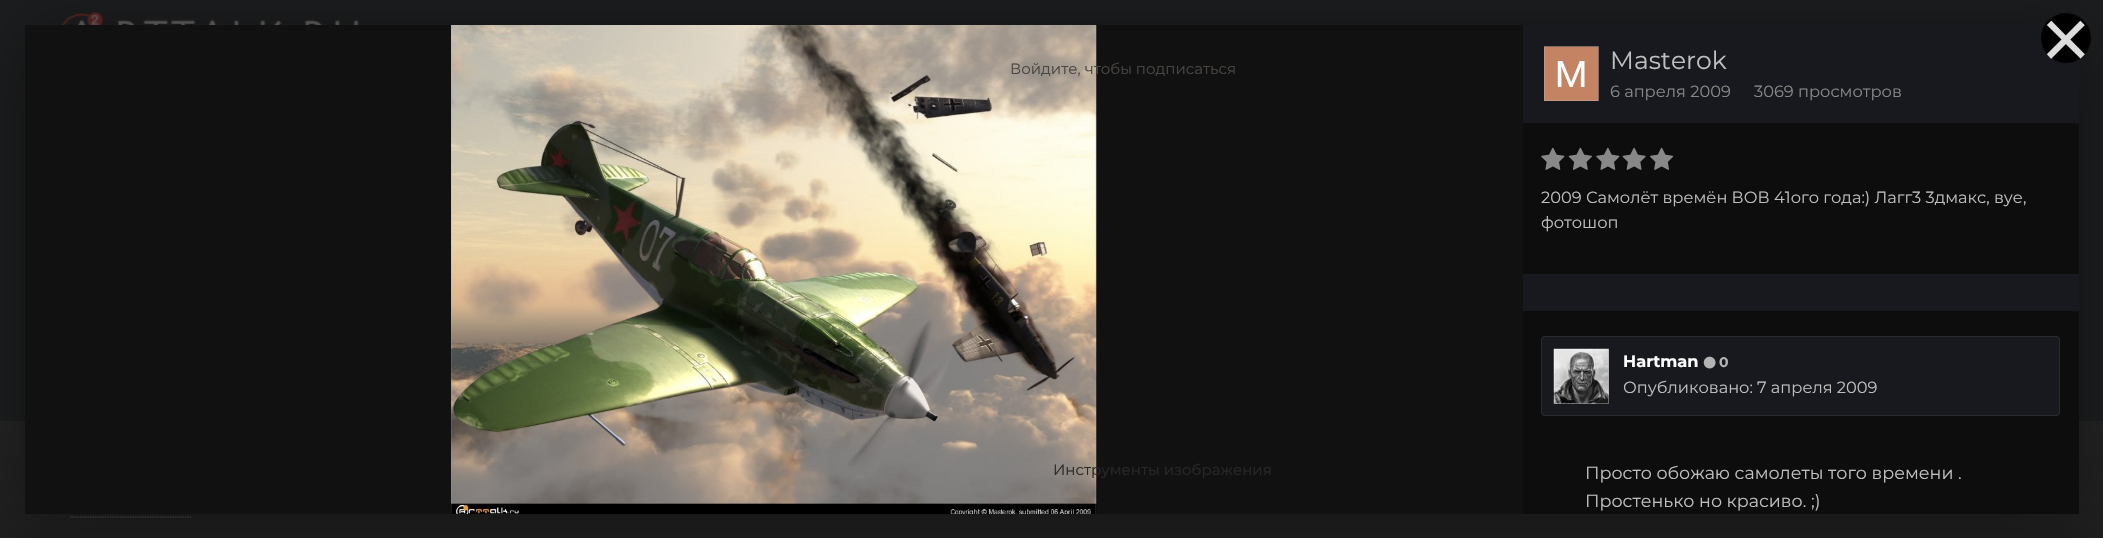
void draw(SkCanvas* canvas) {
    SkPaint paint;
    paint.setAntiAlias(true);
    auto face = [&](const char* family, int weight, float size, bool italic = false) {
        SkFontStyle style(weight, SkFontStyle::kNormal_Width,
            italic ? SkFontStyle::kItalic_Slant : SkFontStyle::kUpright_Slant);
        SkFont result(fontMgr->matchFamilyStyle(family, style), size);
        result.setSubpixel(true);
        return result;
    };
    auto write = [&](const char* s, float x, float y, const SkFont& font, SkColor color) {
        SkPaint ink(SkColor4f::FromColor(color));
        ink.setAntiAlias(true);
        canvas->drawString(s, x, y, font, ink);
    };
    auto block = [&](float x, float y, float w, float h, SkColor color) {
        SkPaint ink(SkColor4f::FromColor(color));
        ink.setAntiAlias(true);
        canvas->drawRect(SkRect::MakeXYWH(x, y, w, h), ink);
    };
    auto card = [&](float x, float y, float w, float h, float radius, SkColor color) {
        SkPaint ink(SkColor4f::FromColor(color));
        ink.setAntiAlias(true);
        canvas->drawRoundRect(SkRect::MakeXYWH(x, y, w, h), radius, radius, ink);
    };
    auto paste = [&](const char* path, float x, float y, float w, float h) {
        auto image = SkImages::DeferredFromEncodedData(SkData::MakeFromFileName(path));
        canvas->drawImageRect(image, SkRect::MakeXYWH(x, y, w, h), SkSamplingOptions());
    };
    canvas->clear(SkColorSetRGB(28, 29, 30));
    paste("pic1.png", 61, 12, 299, 13);
    {
        const SkColor colors[] = {SkColorSetRGB(36, 36, 36), SkColorSetRGB(31, 31, 31)};
        const float stops[] = {0, 1};
        const SkPoint ends[] = {{1052, 421}, {1052, 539}};
        paint.setShader(SkGradientShader::MakeLinear(ends, colors, stops, 2, SkTileMode::kClamp));
        paint.setAlpha(255);
    }
    canvas->drawRect(SkRect::MakeXYWH(0, 421, 2103, 117), paint);
    paint.setStyle(SkPaint::kStroke_Style);
    paint.setStrokeWidth(1.2f);
    paint.setShader(nullptr);
    paint.setColor(SkColorSetRGB(86, 86, 86));
    paint.setPathEffect(SkDashPathEffect::Make({{1.25f, 1.25f}}, 0));
    canvas->drawPath(SkPathBuilder().moveTo(70, 517).lineTo(191, 517).detach(), paint);
    paint.setPathEffect(nullptr);
    paint.setStyle(SkPaint::kFill_Style);
    paint.setColor(SkColorSetARGB(102, 0, 0, 0));
    paint.setMaskFilter(SkMaskFilter::MakeBlur(kNormal_SkBlurStyle, 34.5f));
    canvas->drawRect(SkRect::MakeXYWH(25, 31, 2054, 489), paint);
    paint.setMaskFilter(nullptr);
    block(1523, 25, 556, 98, SkColorSetRGB(24, 25, 30));
    paint.setColor(SK_ColorBLACK);
    canvas->drawCircle(2066, 38, 25, paint);
    auto kFont1 = face("Liberation Sans", 400, 85);
    write("×", 2041, 68, kFont1, SkColorSetRGB(221, 221, 221));
    block(25, 25, 1498, 489, SkColorSetRGB(17, 17, 17));
    paste("pic2.png", 451, 25, 646, 489);
    canvas->save();
    canvas->clipRect(SkRect::MakeXYWH(25, 25, 1498, 489));
    paint.setStyle(SkPaint::kStroke_Style);
    paint.setStrokeWidth(1);
    paint.setColor(SkColorSetARGB(38, 191, 191, 191));
    canvas->drawRect(SkRect::MakeXYWH(451.5f, 20.5f, 644, 499), paint);
    canvas->restore();
    auto kFont2 = face("Montserrat", 400, 15);
    write("Войдите, чтобы подписаться", 1010, 74, kFont2, SkColorSetRGB(73, 70, 66));
    write("Инструменты изображения", 1053, 475, kFont2, SkColorSetRGB(42, 41, 39));
    block(1523, 123, 556, 391, SkColorSetRGB(13, 13, 13));
    paste("pic3.png", 1544, 46, 55, 55);
    paint.setColor(SkColorSetARGB(77, 191, 191, 191));
    canvas->drawRect(SkRect::MakeXYWH(1544.5f, 46.5f, 54, 54), paint);
    auto kFont3 = face("Montserrat", 400, 25);
    write("Masterok", 1610, 69, kFont3, SkColorSetRGB(191, 191, 191));
    auto kFont4 = face("Montserrat", 400, 16.25f);
    write("6 апреля 2009", 1610, 97, kFont4, SkColorSetRGB(135, 135, 135));
    write("3069 просмотров", 1754, 97, kFont4, SkColorSetRGB(135, 135, 135));
    paste("pic4.png", 1541, 147, 24, 23);
    paste("pic5.png", 1568, 147, 24, 23);
    paste("pic4.png", 1596, 147, 24, 23);
    paste("pic6.png", 1622, 147, 24, 23);
    paste("pic7.png", 1650, 147, 24, 23);
    write("2009 Самолёт времён ВОВ 41ого года:) Лагг3 3дмакс, вуе,", 1541, 203, kFont4, SkColorSetRGB(191, 191, 191));
    write("фотошоп", 1541, 228, kFont4, SkColorSetRGB(191, 191, 191));
    block(1523, 274, 556, 37, SkColorSetRGB(24, 25, 30));
    card(1541, 336, 519, 80, 4, SkColorSetRGB(24, 25, 30));
    paint.setColor(SkColorSetARGB(26, 191, 191, 191));
    canvas->drawRoundRect(SkRect::MakeXYWH(1541.5f, 336.5f, 518, 79), 3.5f, 3.5f, paint);
    paste("pic8.png", 1553, 348, 56, 56);
    paint.setColor(SkColorSetARGB(77, 255, 255, 255));
    canvas->drawRect(SkRect::MakeXYWH(1554.5f, 349.5f, 54, 54), paint);
    auto kFont5 = face("Montserrat", 700, 16.25f);
    write("Hartman", 1623, 367, kFont5, SK_ColorWHITE);
    paste("pic9.png", 1703, 356, 13, 13);
    auto kFont6 = face("Montserrat", 700, 14);
    write("0", 1719, 367, kFont6, SkColorSetRGB(179, 179, 179));
    write("Опубликовано:", 1623, 393, kFont4, SkColorSetRGB(191, 191, 191));
    write("7 апреля 2009", 1757, 393, kFont4, SkColorSetRGB(191, 191, 191));
    auto kFont7 = face("Montserrat", 400, 17.5f);
    write("Просто обожаю самолеты того времени .", 1585, 479, kFont7, SkColorSetRGB(191, 191, 191));
    write("Простенько но красиво. ;)", 1585, 507, kFont7, SkColorSetRGB(191, 191, 191));
}
